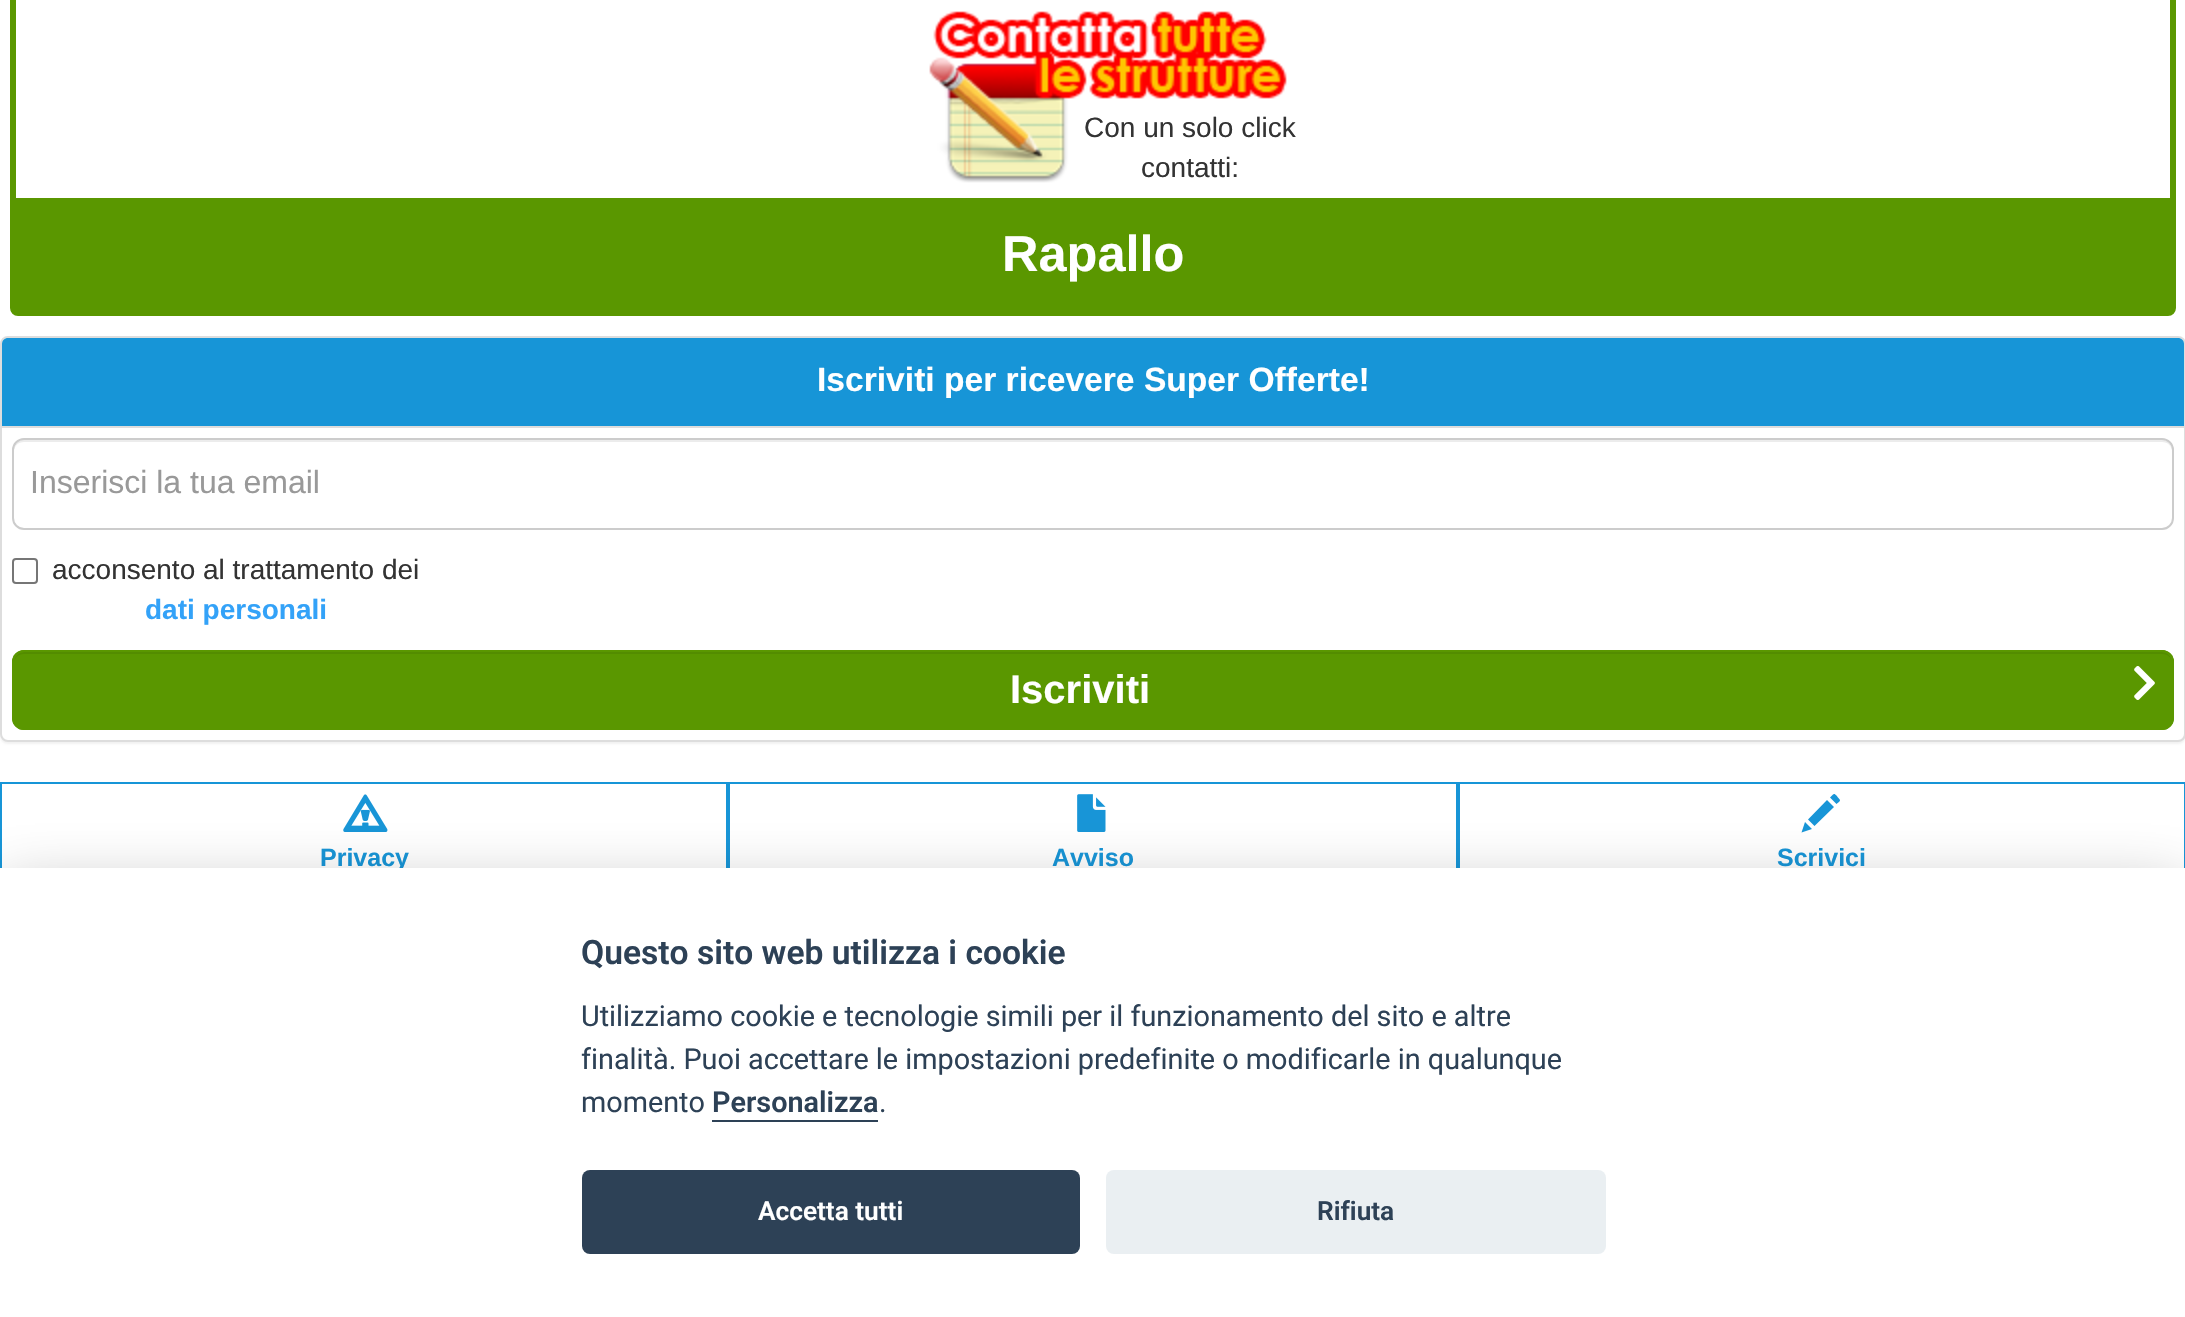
void draw(SkCanvas* canvas) {
    SkPaint paint;
    paint.setAntiAlias(true);
    auto face = [&](const char* family, int weight, float size, bool italic = false) {
        SkFontStyle style(weight, SkFontStyle::kNormal_Width,
            italic ? SkFontStyle::kItalic_Slant : SkFontStyle::kUpright_Slant);
        SkFont result(fontMgr->matchFamilyStyle(family, style), size);
        result.setSubpixel(true);
        return result;
    };
    auto write = [&](const char* s, float x, float y, const SkFont& font, SkColor color) {
        SkPaint ink(SkColor4f::FromColor(color));
        ink.setAntiAlias(true);
        canvas->drawString(s, x, y, font, ink);
    };
    auto block = [&](float x, float y, float w, float h, SkColor color) {
        SkPaint ink(SkColor4f::FromColor(color));
        ink.setAntiAlias(true);
        canvas->drawRect(SkRect::MakeXYWH(x, y, w, h), ink);
    };
    auto card = [&](float x, float y, float w, float h, float radius, SkColor color) {
        SkPaint ink(SkColor4f::FromColor(color));
        ink.setAntiAlias(true);
        canvas->drawRoundRect(SkRect::MakeXYWH(x, y, w, h), radius, radius, ink);
    };
    auto paste = [&](const char* path, float x, float y, float w, float h) {
        auto image = SkImages::DeferredFromEncodedData(SkData::MakeFromFileName(path));
        canvas->drawImageRect(image, SkRect::MakeXYWH(x, y, w, h), SkSamplingOptions());
    };
    canvas->clear(SK_ColorWHITE);
    paint.setStyle(SkPaint::kStroke_Style);
    paint.setStrokeWidth(6);
    paint.setColor(SkColorSetRGB(90, 151, 0));
    canvas->drawRoundRect(SkRect::MakeXYWH(13, -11, 2160, 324), 5, 5, paint);
    paste("pic1.png", 929, 11, 358, 172);
    auto kFont1 = face("Liberation Sans", 400, 28);
    write("Con un solo click", 1084, 137, kFont1, SkColorSetRGB(51, 51, 51));
    write("contatti:", 1141, 177, kFont1, SkColorSetRGB(51, 51, 51));
    block(16, 198, 2154, 112, SkColorSetRGB(90, 151, 0));
    auto kFont2 = face("Liberation Sans", 700, 50.5f);
    write("Rapallo", 1002, 271, kFont2, SK_ColorWHITE);
    paint.setStyle(SkPaint::kFill_Style);
    paint.setColor(SkColorSetARGB(13, 0, 0, 0));
    paint.setMaskFilter(SkMaskFilter::MakeBlur(kNormal_SkBlurStyle, 1));
    canvas->drawRoundRect(SkRect::MakeXYWH(0, 338, 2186, 406), 8, 8, paint);
    paint.setMaskFilter(nullptr);
    paint.setColor(SK_ColorWHITE);
    canvas->drawRoundRect(SkRect::MakeXYWH(1, 337, 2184, 404), 7, 7, paint);
    paint.setStyle(SkPaint::kStroke_Style);
    paint.setStrokeWidth(2);
    paint.setColor(SkColorSetRGB(221, 221, 221));
    canvas->drawRoundRect(SkRect::MakeXYWH(1, 337, 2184, 404), 7, 7, paint);
    paint.setStyle(SkPaint::kFill_Style);
    paint.setColor(SkColorSetRGB(23, 149, 215));
    canvas->drawPath(SkPathBuilder().moveTo(8, 338).lineTo(2178, 338).cubicTo(2181.5f, 338, 2184, 340.5f, 2184, 344).lineTo(2184, 428).lineTo(2, 428).lineTo(2, 344).cubicTo(2, 340.5f, 4.5f, 338, 8, 338).close().detach(), paint);
    block(2, 426, 2182, 2, SkColorSetRGB(221, 221, 221));
    auto kFont3 = face("Liberation Sans", 700, 33.6f);
    write("Iscriviti per ricevere Super Offerte!", 817, 391, kFont3, SK_ColorWHITE);
    paint.setColor(SkColorSetRGB(236, 236, 236));
    canvas->drawPath(SkPathBuilder().moveTo(24, 442).lineTo(2162, 442).cubicTo(2168, 442, 2172, 446, 2172, 452).cubicTo(2172, 446, 2169, 440, 2162, 440).lineTo(24, 440).cubicTo(17, 440, 14, 446, 14, 452).cubicTo(14, 446, 18, 442, 24, 442).close().detach(), paint);
    paint.setStyle(SkPaint::kStroke_Style);
    paint.setColor(SkColorSetRGB(204, 204, 204));
    canvas->drawRoundRect(SkRect::MakeXYWH(13, 439, 2160, 90), 11, 11, paint);
    auto kFont4 = face("Liberation Sans", 400, 32);
    write("Inserisci la tua email", 30, 493, kFont4, SkColorSetRGB(153, 153, 153));
    paint.setColor(SkColorSetRGB(118, 118, 118));
    canvas->drawRoundRect(SkRect::MakeXYWH(13, 559, 24, 24), 3, 3, paint);
    write("acconsento al trattamento dei", 52, 579, kFont1, SkColorSetRGB(51, 51, 51));
    auto kFont5 = face("Liberation Sans", 700, 28);
    write("dati personali", 145, 619, kFont5, SkColorSetRGB(51, 162, 248));
    card(12, 650, 2162, 80, 12, SkColorSetRGB(90, 151, 0));
    paint.setStyle(SkPaint::kFill_Style);
    paint.setColor(SkColorSetRGB(83, 140, 0));
    canvas->drawPath(SkPathBuilder().moveTo(24, 654).lineTo(2162, 654).cubicTo(2168, 654, 2172, 658, 2172, 664).cubicTo(2172, 658, 2169, 652, 2162, 652).lineTo(24, 652).cubicTo(17, 652, 14, 658, 14, 664).cubicTo(14, 658, 18, 654, 24, 654).close().detach(), paint);
    paint.setStyle(SkPaint::kStroke_Style);
    paint.setColor(SkColorSetRGB(90, 151, 0));
    canvas->drawRoundRect(SkRect::MakeXYWH(13, 651, 2160, 78), 11, 11, paint);
    auto kFont6 = face("Liberation Sans", 700, 40);
    write("Iscriviti", 1010, 703, kFont6, SK_ColorWHITE);
    paste("pic2.png", 2134, 666, 21, 34);
    paint.setColor(SkColorSetRGB(23, 149, 215));
    canvas->drawRect(SkRect::MakeXYWH(1, 783, 726, 132), paint);
    paste("pic3.png", 343, 794, 45, 38);
    auto kFont7 = face("Liberation Sans", 700, 25);
    write("Privacy", 320, 866, kFont7, SkColorSetRGB(23, 149, 215));
    canvas->drawRect(SkRect::MakeXYWH(729, 783, 728, 132), paint);
    paste("pic4.png", 1077, 794, 29, 38);
    write("Avviso", 1052, 866, kFont7, SkColorSetRGB(23, 149, 215));
    canvas->drawRect(SkRect::MakeXYWH(1459, 783, 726, 132), paint);
    paint.setStyle(SkPaint::kFill_Style);
    canvas->drawPath(SkPathBuilder().moveTo(1833, 794.5f).cubicTo(1834.5f, 792.5f, 1837.5f, 796.5f, 1838, 797.5f).cubicTo(1841.5f, 801, 1840, 801, 1836.5f, 804).lineTo(1830, 797.5f).close().moveTo(1834, 807).lineTo(1814.5f, 826).lineTo(1808, 819.5f).lineTo(1827, 800).close().moveTo(1812, 829).lineTo(1801.5f, 832.5f).lineTo(1805, 822).close().detach(), paint);
    write("Scrivici", 1777, 866, kFont7, SkColorSetRGB(23, 149, 215));
    paint.setColor(SkColorSetARGB(71, 2, 2, 3));
    paint.setMaskFilter(SkMaskFilter::MakeBlur(kNormal_SkBlurStyle, 30));
    canvas->drawRect(SkRect::MakeXYWH(0, 888, 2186, 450), paint);
    paint.setMaskFilter(nullptr);
    block(0, 868, 2185, 449, SK_ColorWHITE);
    auto kFont8 = face("Roboto", 600, 33.6f);
    write("Questo sito web utilizza i cookie", 581, 964, kFont8, SkColorSetRGB(45, 65, 86));
    auto kFont9 = face("Roboto", 400, 28.8f);
    write("Utilizziamo cookie e tecnologie simili per il funzionamento del sito e altre", 581, 1026, kFont9, SkColorSetRGB(45, 65, 86));
    write("finalità. Puoi accettare le impostazioni predefinite o modificarle in qualunque", 581, 1069, kFont9, SkColorSetRGB(45, 65, 86));
    write("momento", 581, 1112, kFont9, SkColorSetRGB(45, 65, 86));
    auto kFont10 = face("Roboto", 600, 28.8f);
    write("Personalizza", 712, 1112, kFont10, SkColorSetRGB(45, 65, 86));
    block(712, 1120, 166, 2, SkColorSetRGB(45, 65, 86));
    write(".", 879, 1112, kFont9, SkColorSetRGB(45, 65, 86));
    card(582, 1170, 498, 84, 8, SkColorSetRGB(45, 65, 86));
    auto kFont11 = face("Roboto", 600, 26.25f);
    write("Accetta tutti", 758, 1220, kFont11, SK_ColorWHITE);
    card(1106, 1170, 500, 84, 8, SkColorSetRGB(234, 239, 242));
    write("Rifiuta", 1317, 1220, kFont11, SkColorSetRGB(45, 65, 86));
}
